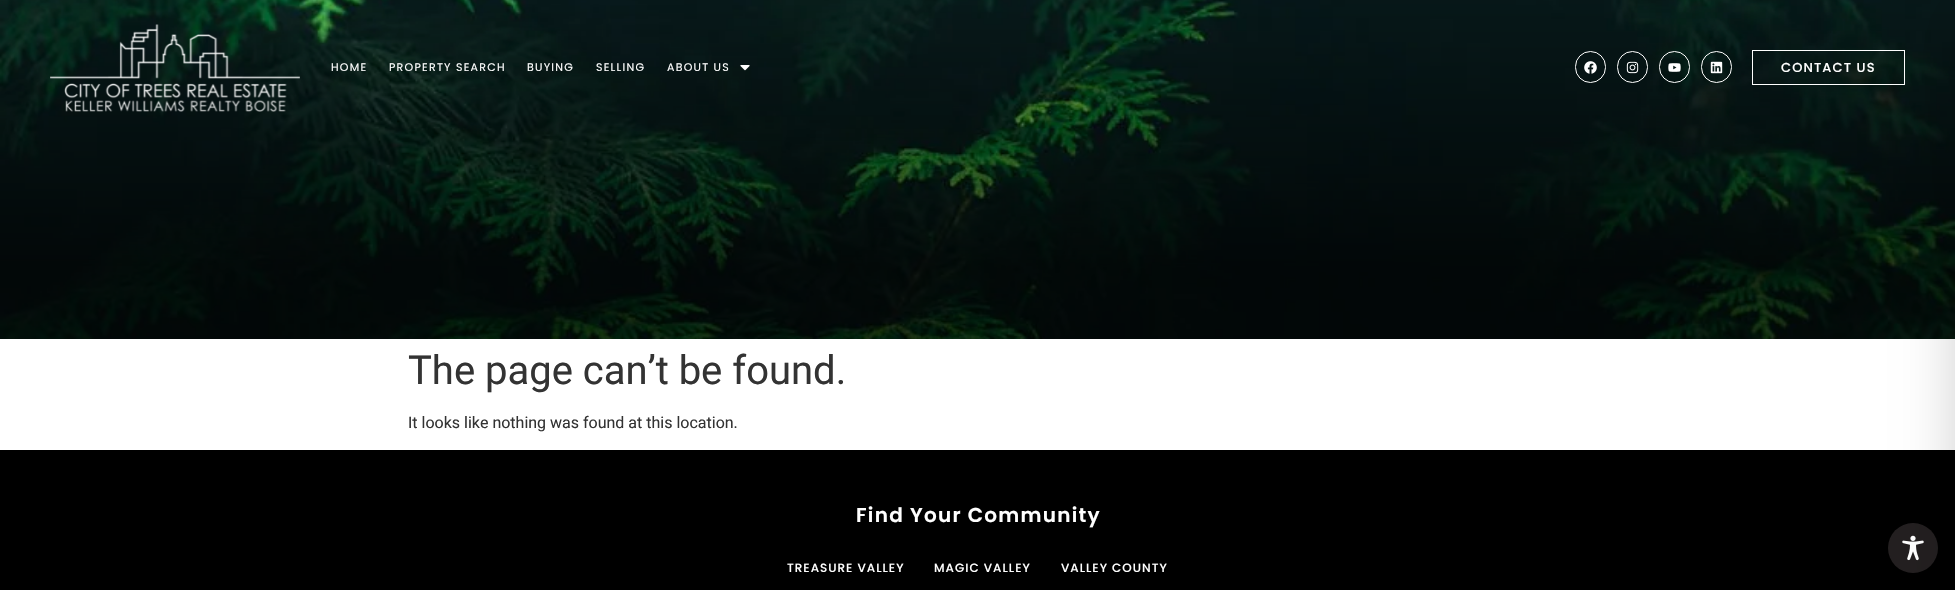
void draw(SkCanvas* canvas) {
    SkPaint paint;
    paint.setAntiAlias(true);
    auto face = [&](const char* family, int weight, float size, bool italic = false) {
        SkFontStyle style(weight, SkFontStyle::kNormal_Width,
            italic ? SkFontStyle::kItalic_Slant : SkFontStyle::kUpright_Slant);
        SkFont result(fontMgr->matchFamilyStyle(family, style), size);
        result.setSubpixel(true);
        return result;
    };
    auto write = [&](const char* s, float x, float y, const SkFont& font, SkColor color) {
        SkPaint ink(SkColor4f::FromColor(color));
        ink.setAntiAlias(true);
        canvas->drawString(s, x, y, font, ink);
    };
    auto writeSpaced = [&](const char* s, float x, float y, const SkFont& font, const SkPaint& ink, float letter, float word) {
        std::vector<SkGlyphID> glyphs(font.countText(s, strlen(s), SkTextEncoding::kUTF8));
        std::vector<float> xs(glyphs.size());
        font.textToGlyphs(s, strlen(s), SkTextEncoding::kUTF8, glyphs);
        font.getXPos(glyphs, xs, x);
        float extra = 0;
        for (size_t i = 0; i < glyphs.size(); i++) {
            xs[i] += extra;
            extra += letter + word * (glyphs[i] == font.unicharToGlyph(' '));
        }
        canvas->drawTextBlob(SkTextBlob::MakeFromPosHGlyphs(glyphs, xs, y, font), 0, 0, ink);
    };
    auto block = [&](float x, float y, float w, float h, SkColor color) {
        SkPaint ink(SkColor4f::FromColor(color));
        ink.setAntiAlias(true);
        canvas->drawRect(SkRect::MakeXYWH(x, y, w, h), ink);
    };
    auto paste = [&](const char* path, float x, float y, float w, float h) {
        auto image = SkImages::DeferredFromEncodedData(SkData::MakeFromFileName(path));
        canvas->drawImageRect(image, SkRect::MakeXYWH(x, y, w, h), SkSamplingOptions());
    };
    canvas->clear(SK_ColorWHITE);
    paste("pic1.png", 0, 0, 1955, 339);
    paste("pic2.png", 50, 24, 250, 88);
    auto kFont1 = face("Poppins", 400, 11);
    paint.setColor(SK_ColorWHITE);
    writeSpaced("HOME", 331, 71, kFont1, paint, 1.25f, 0);
    writeSpaced("PROPERTY SEARCH", 389, 71, kFont1, paint, 1.25f, 0);
    writeSpaced("BUYING", 527, 71, kFont1, paint, 1.25f, 0);
    writeSpaced("SELLING", 596, 71, kFont1, paint, 1.25f, 0);
    writeSpaced("ABOUT US", 667, 71, kFont1, paint, 1.25f, 0);
    paste("pic3.png", 740, 65, 10, 6);
    paint.setStyle(SkPaint::kStroke_Style);
    paint.setStrokeWidth(1);
    canvas->drawRoundRect(SkRect::MakeXYWH(1575.5f, 51.5f, 30, 31), 15, 15, paint);
    paste("pic4.png", 1584, 61, 13, 13);
    canvas->drawRoundRect(SkRect::MakeXYWH(1617.5f, 51.5f, 30, 31), 15, 15, paint);
    paste("pic5.png", 1626, 61, 13, 13);
    canvas->drawRoundRect(SkRect::MakeXYWH(1659.5f, 51.5f, 30, 31), 15, 15, paint);
    paste("pic6.png", 1668, 63, 13, 9);
    canvas->drawRoundRect(SkRect::MakeXYWH(1701.5f, 51.5f, 30, 31), 15, 15, paint);
    paste("pic7.png", 1710, 61, 13, 13);
    canvas->drawRect(SkRect::MakeXYWH(1752.5f, 50.5f, 152, 34), paint);
    auto kFont2 = face("Poppins", 500, 13);
    paint.setStyle(SkPaint::kFill_Style);
    writeSpaced("CONTACT US", 1781, 72, kFont2, paint, 1.1f, 0);
    block(0, 450, 1955, 140, SK_ColorBLACK);
    paint.setColor(SkColorSetRGB(35, 31, 32));
    canvas->drawCircle(1913, 548, 25, paint);
    paste("pic8.png", 1902, 535, 22, 26);
    paint.setColor(SkColorSetARGB(51, 0, 0, 0));
    paint.setMaskFilter(SkMaskFilter::MakeBlur(kNormal_SkBlurStyle, 30));
    canvas->drawRect(SkRect::MakeXYWH(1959, 10, 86, 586), paint);
    paint.setMaskFilter(nullptr);
    auto kFont3 = face("Roboto", 400, 40);
    write("The page can’t be found.", 408, 384, kFont3, SkColorSetRGB(51, 51, 51));
    auto kFont4 = face("Roboto", 400, 16);
    write("It looks like nothing was found at this location.", 408, 428, kFont4, SkColorSetRGB(51, 51, 51));
    auto kFont5 = face("Poppins", 600, 20);
    paint.setColor(SK_ColorWHITE);
    writeSpaced("Find Your Community", 856, 522, kFont5, paint, 1.25f, 0);
    auto kFont6 = face("Poppins", 500, 12);
    writeSpaced("TREASURE VALLEY", 787, 572, kFont6, paint, 1, 0);
    writeSpaced("MAGIC VALLEY", 934, 572, kFont6, paint, 1, 0);
    writeSpaced("VALLEY COUNTY", 1061, 572, kFont6, paint, 1, 0);
}
